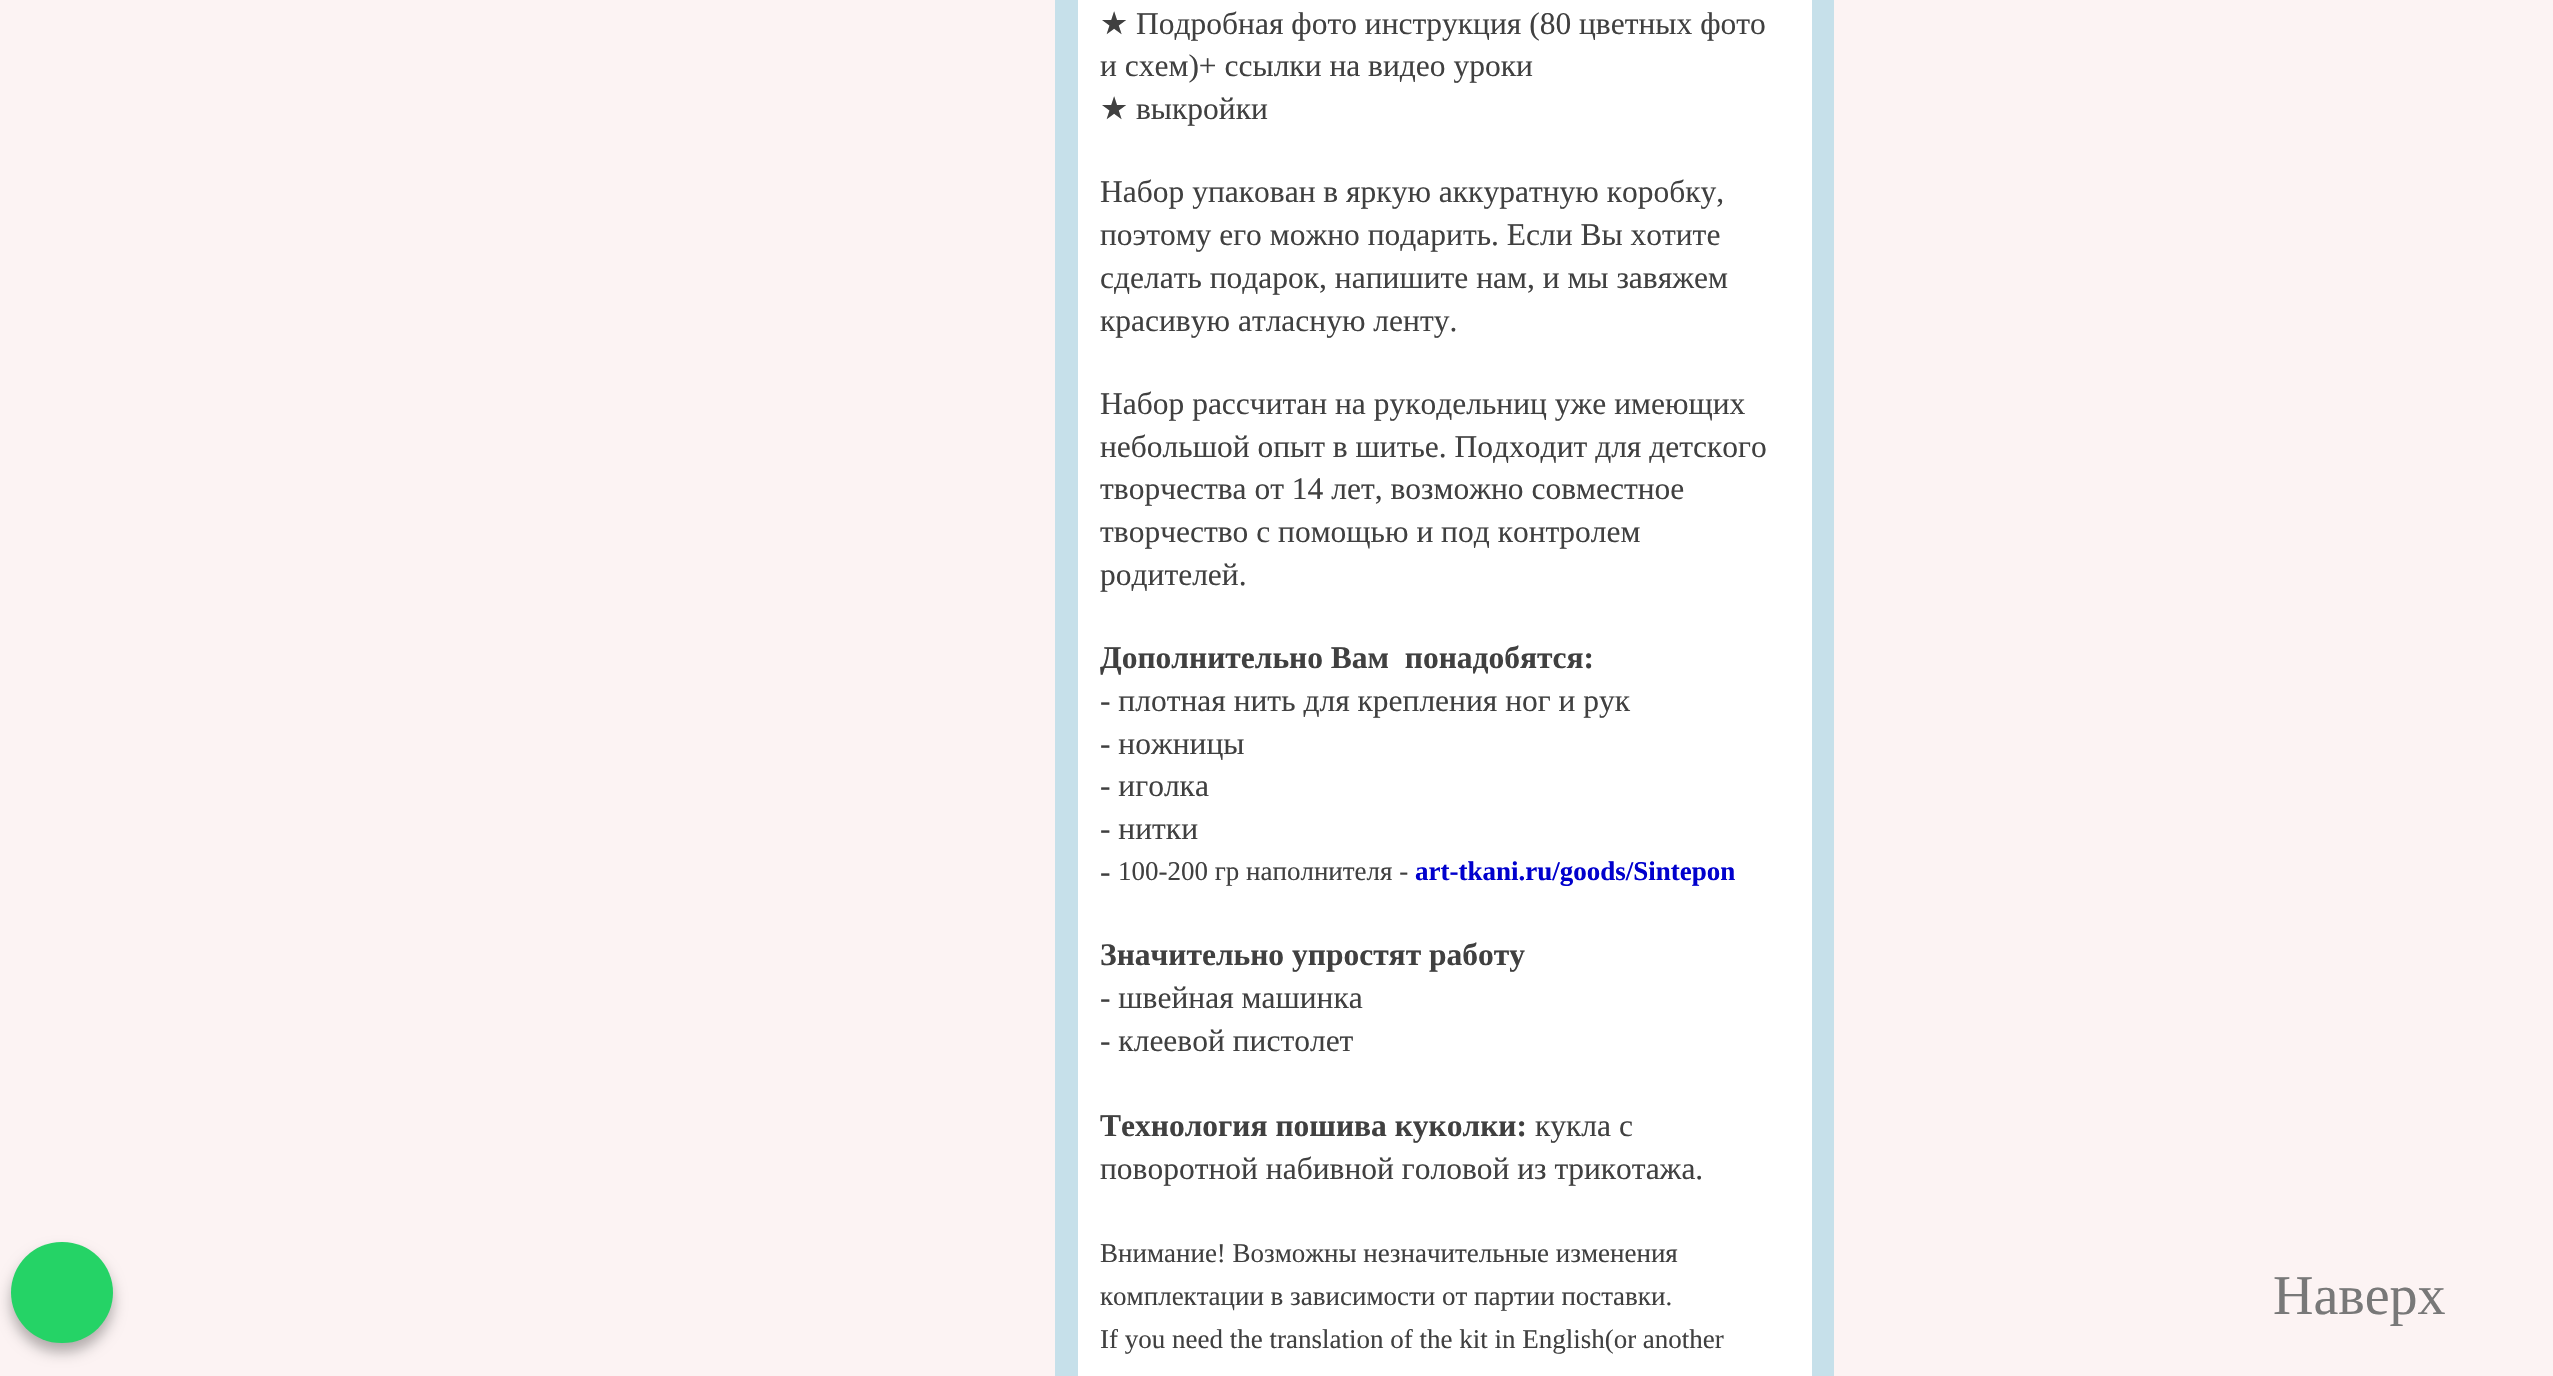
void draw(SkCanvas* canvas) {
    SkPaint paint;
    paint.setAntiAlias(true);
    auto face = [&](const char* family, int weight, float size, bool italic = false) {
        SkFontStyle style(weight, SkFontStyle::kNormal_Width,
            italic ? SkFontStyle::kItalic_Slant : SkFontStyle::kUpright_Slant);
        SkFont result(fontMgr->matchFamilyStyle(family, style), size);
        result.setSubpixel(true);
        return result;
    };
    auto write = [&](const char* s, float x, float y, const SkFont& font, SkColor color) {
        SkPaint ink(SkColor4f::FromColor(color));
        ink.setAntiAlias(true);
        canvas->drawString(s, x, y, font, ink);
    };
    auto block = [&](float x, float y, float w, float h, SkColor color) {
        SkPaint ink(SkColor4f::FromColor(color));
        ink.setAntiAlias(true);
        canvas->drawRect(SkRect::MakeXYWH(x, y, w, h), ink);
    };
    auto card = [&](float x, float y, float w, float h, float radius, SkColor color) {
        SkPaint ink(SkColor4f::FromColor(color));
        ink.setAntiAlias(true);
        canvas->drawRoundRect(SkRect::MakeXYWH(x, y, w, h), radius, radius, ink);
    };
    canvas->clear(SkColorSetRGB(252, 243, 243));
    paint.setColor(SkColorSetARGB(77, 0, 0, 0));
    paint.setMaskFilter(SkMaskFilter::MakeBlur(kNormal_SkBlurStyle, 7));
    canvas->drawRoundRect(SkRect::MakeXYWH(11, 1251, 102, 101), 50.5f, 50.5f, paint);
    paint.setMaskFilter(nullptr);
    card(11, 1242, 102, 101, 50.5f, SkColorSetRGB(37, 211, 102));
    block(1055, 0, 779, 1376, SkColorSetRGB(198, 224, 234));
    block(1078, 0, 734, 1376, SK_ColorWHITE);
    auto kFont1 = face("DejaVu Sans", 400, 31.5f);
    write("★", 1100, 34, kFont1, SkColorSetRGB(64, 64, 64));
    auto kFont2 = face("Liberation Serif", 400, 31.5f);
    write("Подробная фото инструкция (80 цветных фото", 1136, 34, kFont2, SkColorSetRGB(64, 64, 64));
    write("и схем)+ ссылки на видео уроки", 1100, 76, kFont2, SkColorSetRGB(64, 64, 64));
    write("★", 1100, 119, kFont1, SkColorSetRGB(64, 64, 64));
    write("выкройки", 1136, 119, kFont2, SkColorSetRGB(64, 64, 64));
    write("Набор упакован в яркую аккуратную коробку,", 1100, 202, kFont2, SkColorSetRGB(64, 64, 64));
    write("поэтому его можно подарить. Если Вы хотите", 1100, 245, kFont2, SkColorSetRGB(64, 64, 64));
    write("сделать подарок, напишите нам, и мы завяжем", 1100, 288, kFont2, SkColorSetRGB(64, 64, 64));
    write("красивую атласную ленту.", 1100, 331, kFont2, SkColorSetRGB(64, 64, 64));
    write("Набор рассчитан на рукодельниц уже имеющих", 1100, 414, kFont2, SkColorSetRGB(64, 64, 64));
    write("небольшой опыт в шитье. Подходит для детского", 1100, 457, kFont2, SkColorSetRGB(64, 64, 64));
    write("творчества от 14 лет, возможно совместное", 1100, 499, kFont2, SkColorSetRGB(64, 64, 64));
    write("творчество с помощью и под контролем", 1100, 542, kFont2, SkColorSetRGB(64, 64, 64));
    write("родителей.", 1100, 585, kFont2, SkColorSetRGB(64, 64, 64));
    auto kFont3 = face("Liberation Serif", 700, 31.5f);
    write("Дополнительно Вам  понадобятся:", 1100, 668, kFont3, SkColorSetRGB(64, 64, 64));
    write("- плотная нить для крепления ног и рук", 1100, 711, kFont2, SkColorSetRGB(64, 64, 64));
    write("- ножницы", 1100, 754, kFont2, SkColorSetRGB(64, 64, 64));
    write("- иголка", 1100, 796, kFont2, SkColorSetRGB(64, 64, 64));
    write("- нитки", 1100, 839, kFont2, SkColorSetRGB(64, 64, 64));
    write("-", 1100, 882, kFont2, SkColorSetRGB(64, 64, 64));
    auto kFont4 = face("Liberation Serif", 400, 27);
    write("100-200 гр наполнителя -", 1118, 880, kFont4, SkColorSetRGB(64, 64, 64));
    auto kFont5 = face("Liberation Serif", 700, 27);
    write("art-tkani.ru/goods/Sintepon", 1415, 880, kFont5, SkColorSetRGB(0, 0, 205));
    write("Значительно упростят работу", 1100, 965, kFont3, SkColorSetRGB(64, 64, 64));
    write("- швейная машинка", 1100, 1008, kFont2, SkColorSetRGB(64, 64, 64));
    write("- клеевой пистолет", 1100, 1051, kFont2, SkColorSetRGB(64, 64, 64));
    write("Технология пошива куколки:", 1100, 1136, kFont3, SkColorSetRGB(64, 64, 64));
    write("кукла с", 1535, 1136, kFont2, SkColorSetRGB(64, 64, 64));
    write("поворотной набивной головой из трикотажа.", 1100, 1179, kFont2, SkColorSetRGB(64, 64, 64));
    write("Внимание! Возможны незначительные изменения", 1100, 1262, kFont4, SkColorSetRGB(64, 64, 64));
    write("комплектации в зависимости от партии поставки.", 1100, 1305, kFont4, SkColorSetRGB(64, 64, 64));
    write("If you need the translation of the kit in English(or another", 1100, 1348, kFont4, SkColorSetRGB(64, 64, 64));
    auto kFont6 = face("Liberation Serif", 400, 56);
    write("Наверх", 2273, 1314, kFont6, SkColorSetRGB(120, 120, 120));
}
